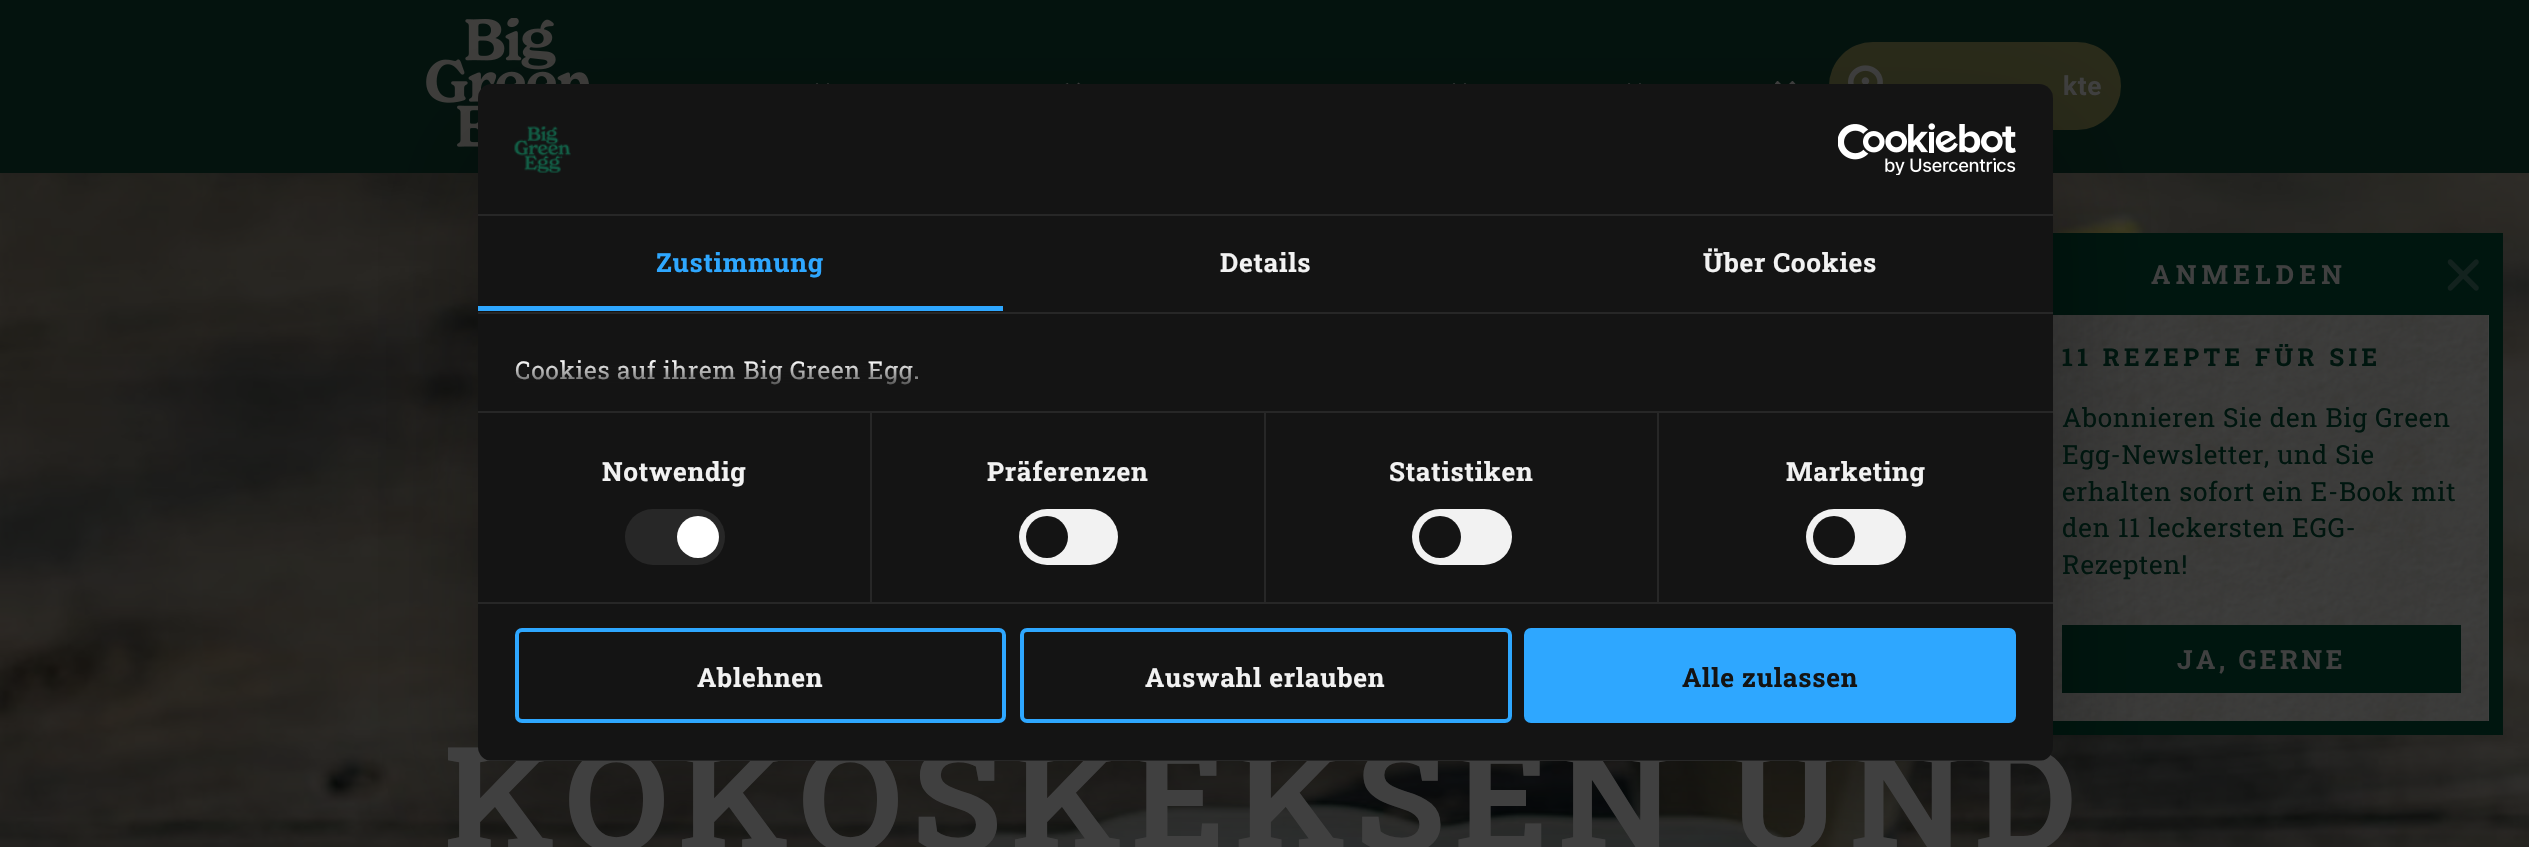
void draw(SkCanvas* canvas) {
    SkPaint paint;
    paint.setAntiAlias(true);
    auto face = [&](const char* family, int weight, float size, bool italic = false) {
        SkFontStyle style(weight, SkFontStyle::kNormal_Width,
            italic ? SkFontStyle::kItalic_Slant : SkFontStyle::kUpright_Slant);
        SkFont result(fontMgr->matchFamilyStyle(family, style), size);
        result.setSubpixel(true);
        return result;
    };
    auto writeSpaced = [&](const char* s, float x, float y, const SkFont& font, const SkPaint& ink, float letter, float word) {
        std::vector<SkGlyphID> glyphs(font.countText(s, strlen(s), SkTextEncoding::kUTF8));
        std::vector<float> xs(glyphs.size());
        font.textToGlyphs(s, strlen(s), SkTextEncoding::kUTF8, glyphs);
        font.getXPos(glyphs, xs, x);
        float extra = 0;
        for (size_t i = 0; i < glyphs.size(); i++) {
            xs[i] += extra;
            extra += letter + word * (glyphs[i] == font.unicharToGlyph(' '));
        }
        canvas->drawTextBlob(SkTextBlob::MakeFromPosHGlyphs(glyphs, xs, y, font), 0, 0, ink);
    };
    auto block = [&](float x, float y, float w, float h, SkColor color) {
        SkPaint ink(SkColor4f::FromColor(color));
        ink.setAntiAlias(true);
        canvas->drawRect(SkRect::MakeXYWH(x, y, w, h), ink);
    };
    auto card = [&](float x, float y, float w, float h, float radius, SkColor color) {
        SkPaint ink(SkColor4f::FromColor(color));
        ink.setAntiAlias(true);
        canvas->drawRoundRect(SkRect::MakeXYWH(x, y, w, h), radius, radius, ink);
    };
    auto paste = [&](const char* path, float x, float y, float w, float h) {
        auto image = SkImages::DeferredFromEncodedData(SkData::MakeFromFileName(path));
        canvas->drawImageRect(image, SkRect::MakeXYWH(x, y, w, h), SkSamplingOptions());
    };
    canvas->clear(SK_ColorWHITE);
    block(0, 0, 2529, 173, SkColorSetRGB(4, 19, 14));
    paste("pic1.png", 426, 18, 163, 129);
    paste("pic2.png", 816, 83, 13, 1);
    paint.setColor(SkColorSetRGB(64, 64, 64));
    canvas->drawPath(SkPathBuilder().moveTo(1081, 85.5f).cubicTo(1080.5f, 84, 1079.5f, 83.5f, 1078.5f, 82.5f).lineTo(1073, 88.5f).lineTo(1067.5f, 83).cubicTo(1066, 83.5f, 1065, 84.5f, 1064.5f, 85.5f).lineTo(1073, 93.5f).close().detach(), paint);
    paste("pic2.png", 1453, 83, 13, 1);
    paste("pic2.png", 1628, 83, 13, 1);
    canvas->save();
    canvas->clipRect(SkRect::MakeXYWH(1775, 81, 21, 14));
    canvas->drawPath(SkPathBuilder().moveTo(1795.5f, 84).lineTo(1792.5f, 80.5f).lineTo(1785, 88).lineTo(1777.5f, 80.5f).lineTo(1774.5f, 84).lineTo(1785, 94.5f).close().detach(), paint);
    canvas->restore();
    card(1829, 42, 292, 88, 44, SkColorSetRGB(42, 43, 26));
    paste("pic3.png", 1848, 65, 35, 19);
    auto kFont1 = face("Roboto", 700, 26.25f);
    writeSpaced("kte", 2063, 95, kFont1, paint, 0.7f, 0);
    paste("pic7.png", 0, 173, 2529, 674);
    block(2053, 233, 450, 502, SkColorSetRGB(0, 22, 15));
    paste("pic6.png", 2053, 315, 435, 406);
    block(2062, 625, 399, 68, SkColorSetRGB(0, 22, 15));
    paint.setColor(SkColorSetARGB(77, 0, 0, 0));
    paint.setMaskFilter(SkMaskFilter::MakeBlur(kNormal_SkBlurStyle, 59.5f));
    canvas->drawRoundRect(SkRect::MakeXYWH(478, 140, 1575, 677), 14, 14, paint);
    paint.setMaskFilter(nullptr);
    auto kFont2 = face("Roboto Slab", 700, 147);
    paint.setColor(SkColorSetRGB(64, 64, 64));
    writeSpaced("KOKOSKEKSEN UND", 444, 852, kFont2, paint, 9.6f, 0);
    card(478, 84, 1575, 677, 14, SkColorSetRGB(20, 20, 20));
    block(478, 214, 1575, 2, SkColorSetRGB(39, 39, 39));
    paste("pic4.png", 514, 126, 57, 47);
    paste("pic5.png", 1838, 123, 178, 52);
    block(478, 312, 1575, 2, SkColorSetRGB(39, 39, 39));
    block(478, 306, 525, 5, SkColorSetRGB(46, 167, 255));
    auto kFont3 = face("Roboto Slab", 700, 26.25f);
    paint.setColor(SkColorSetRGB(46, 167, 255));
    writeSpaced("Zustimmung", 656, 272, kFont3, paint, 0.7f, 0);
    paint.setColor(SkColorSetRGB(242, 242, 242));
    writeSpaced("Details", 1220, 272, kFont3, paint, 0.7f, 0);
    writeSpaced("Über Cookies", 1703, 272, kFont3, paint, 0.7f, 0);
    block(478, 411, 1575, 2, SkColorSetRGB(39, 39, 39));
    auto kFont4 = face("Roboto Slab", 400, 24.5f);
    writeSpaced("Cookies auf ihrem Big Green Egg.", 515, 379, kFont4, paint, 0.7f, 0);
    {
        const SkColor colors[] = {SkColorSetRGB(20, 20, 20), SkColorSetARGB(204, 20, 20, 20), SkColorSetARGB(0, 20, 20, 20)};
        const float stops[] = {0, 0.5f, 1};
        const SkPoint ends[] = {{1249, 412}, {1249, 363}};
        paint.setShader(SkGradientShader::MakeLinear(ends, colors, stops, 3, SkTileMode::kClamp));
        paint.setAlpha(255);
    }
    canvas->drawRect(SkRect::MakeXYWH(515, 364, 402, 21), paint);
    block(478, 602, 1575, 2, SkColorSetRGB(39, 39, 39));
    block(870, 413, 2, 189, SkColorSetRGB(39, 39, 39));
    paint.setShader(nullptr);
    paint.setColor(SkColorSetRGB(242, 242, 242));
    writeSpaced("Notwendig", 602, 481, kFont3, paint, 0.7f, 0);
    card(625, 509, 100, 56, 28, SkColorSetRGB(39, 39, 39));
    paint.setColor(SK_ColorWHITE);
    canvas->drawCircle(698, 537, 21, paint);
    block(1264, 413, 2, 189, SkColorSetRGB(39, 39, 39));
    paint.setColor(SkColorSetRGB(242, 242, 242));
    writeSpaced("Präferenzen", 987, 481, kFont3, paint, 0.7f, 0);
    card(1019, 509, 99, 56, 28, SkColorSetRGB(242, 242, 242));
    paint.setColor(SkColorSetRGB(20, 20, 20));
    canvas->drawCircle(1047, 537, 21, paint);
    block(1657, 413, 2, 189, SkColorSetRGB(39, 39, 39));
    paint.setColor(SkColorSetRGB(242, 242, 242));
    writeSpaced("Statistiken", 1389, 481, kFont3, paint, 0.7f, 0);
    card(1412, 509, 100, 56, 28, SkColorSetRGB(242, 242, 242));
    paint.setColor(SkColorSetRGB(20, 20, 20));
    canvas->drawCircle(1440, 537, 21, paint);
    paint.setColor(SkColorSetRGB(242, 242, 242));
    writeSpaced("Marketing", 1786, 481, kFont3, paint, 0.7f, 0);
    card(1806, 509, 100, 56, 28, SkColorSetRGB(242, 242, 242));
    paint.setColor(SkColorSetRGB(20, 20, 20));
    canvas->drawCircle(1834, 537, 21, paint);
    canvas->save();
    canvas->clipPath(SkPathBuilder().moveTo(492, 84).lineTo(2039, 84).cubicTo(2046.5f, 84, 2053, 90.5f, 2053, 98).lineTo(2053, 747).cubicTo(2053, 754.5f, 2046.5f, 761, 2039, 761).lineTo(492, 761).cubicTo(484.5f, 761, 478, 754.5f, 478, 747).lineTo(478, 98).cubicTo(478, 90.5f, 484.5f, 84, 492, 84).close().detach(), true);
    block(488, 760, 1555, 1, SkColorSetARGB(20, 255, 255, 255));
    canvas->restore();
    paint.setStyle(SkPaint::kStroke_Style);
    paint.setStrokeWidth(4);
    paint.setColor(SkColorSetRGB(46, 167, 255));
    canvas->drawRoundRect(SkRect::MakeXYWH(517, 630, 487, 91), 5, 5, paint);
    paint.setStyle(SkPaint::kFill_Style);
    paint.setColor(SkColorSetRGB(242, 242, 242));
    writeSpaced("Ablehnen", 697, 687, kFont3, paint, 0.7f, 0);
    paint.setStyle(SkPaint::kStroke_Style);
    paint.setColor(SkColorSetRGB(46, 167, 255));
    canvas->drawRoundRect(SkRect::MakeXYWH(1022, 630, 488, 91), 5, 5, paint);
    paint.setStyle(SkPaint::kFill_Style);
    paint.setColor(SkColorSetRGB(242, 242, 242));
    writeSpaced("Auswahl erlauben", 1145, 687, kFont3, paint, 0.7f, 0);
    paint.setColor(SkColorSetRGB(46, 167, 255));
    canvas->drawRoundRect(SkRect::MakeXYWH(1526, 630, 488, 91), 5, 5, paint);
    paint.setStyle(SkPaint::kStroke_Style);
    canvas->drawRoundRect(SkRect::MakeXYWH(1526, 630, 488, 91), 5, 5, paint);
    paint.setStyle(SkPaint::kFill_Style);
    paint.setColor(SkColorSetRGB(20, 20, 20));
    writeSpaced("Alle zulassen", 1682, 687, kFont3, paint, 0.7f, 0);
    paint.setColor(SkColorSetRGB(64, 64, 64));
    writeSpaced("ANMELDEN", 2151, 284, kFont3, paint, 5.25f, 0);
    paint.setColor(SkColorSetRGB(19, 34, 30));
    canvas->drawPath(SkPathBuilder().moveTo(2478, 260).cubicTo(2479, 261, 2479, 263, 2478, 264).lineTo(2452, 290).cubicTo(2451, 291, 2449.5f, 291, 2448.5f, 290).cubicTo(2447.5f, 288.5f, 2447.5f, 287, 2448.5f, 286).lineTo(2474.5f, 260).cubicTo(2475.5f, 259, 2477, 259, 2478, 260).close().detach(), paint);
    canvas->drawPath(SkPathBuilder().moveTo(2448.5f, 260).cubicTo(2449.5f, 259, 2451, 259, 2452, 260).lineTo(2478, 286).cubicTo(2479, 287, 2479, 288.5f, 2478, 290).cubicTo(2477, 291, 2475.5f, 291, 2474.5f, 290).lineTo(2448.5f, 264).cubicTo(2447.5f, 263, 2447.5f, 261, 2448.5f, 260).close().detach(), paint);
    block(2488, 315, 1, 406, SkColorSetRGB(64, 64, 64));
    auto kFont5 = face("Roboto Slab", 700, 24.5f);
    paint.setColor(SkColorSetRGB(0, 22, 15));
    writeSpaced("11 REZEPTE FÜR SIE", 2062, 366, kFont5, paint, 4.4f, 0);
    auto kFont6 = face("Roboto Slab", 400, 26.25f);
    writeSpaced("Abonnieren Sie den Big Green", 2062, 427, kFont6, paint, 0.7f, 0);
    writeSpaced("Egg-Newsletter, und Sie", 2062, 464, kFont6, paint, 0.7f, 0);
    writeSpaced("erhalten sofort ein E-Book mit", 2062, 501, kFont6, paint, 0.7f, 0);
    writeSpaced("den 11 leckersten EGG-", 2062, 537, kFont6, paint, 0.7f, 0);
    writeSpaced("Rezepten!", 2062, 574, kFont6, paint, 0.7f, 0);
    paint.setColor(SkColorSetRGB(64, 64, 64));
    writeSpaced("JA, GERNE", 2177, 669, kFont3, paint, 3.5f, 0);
}
